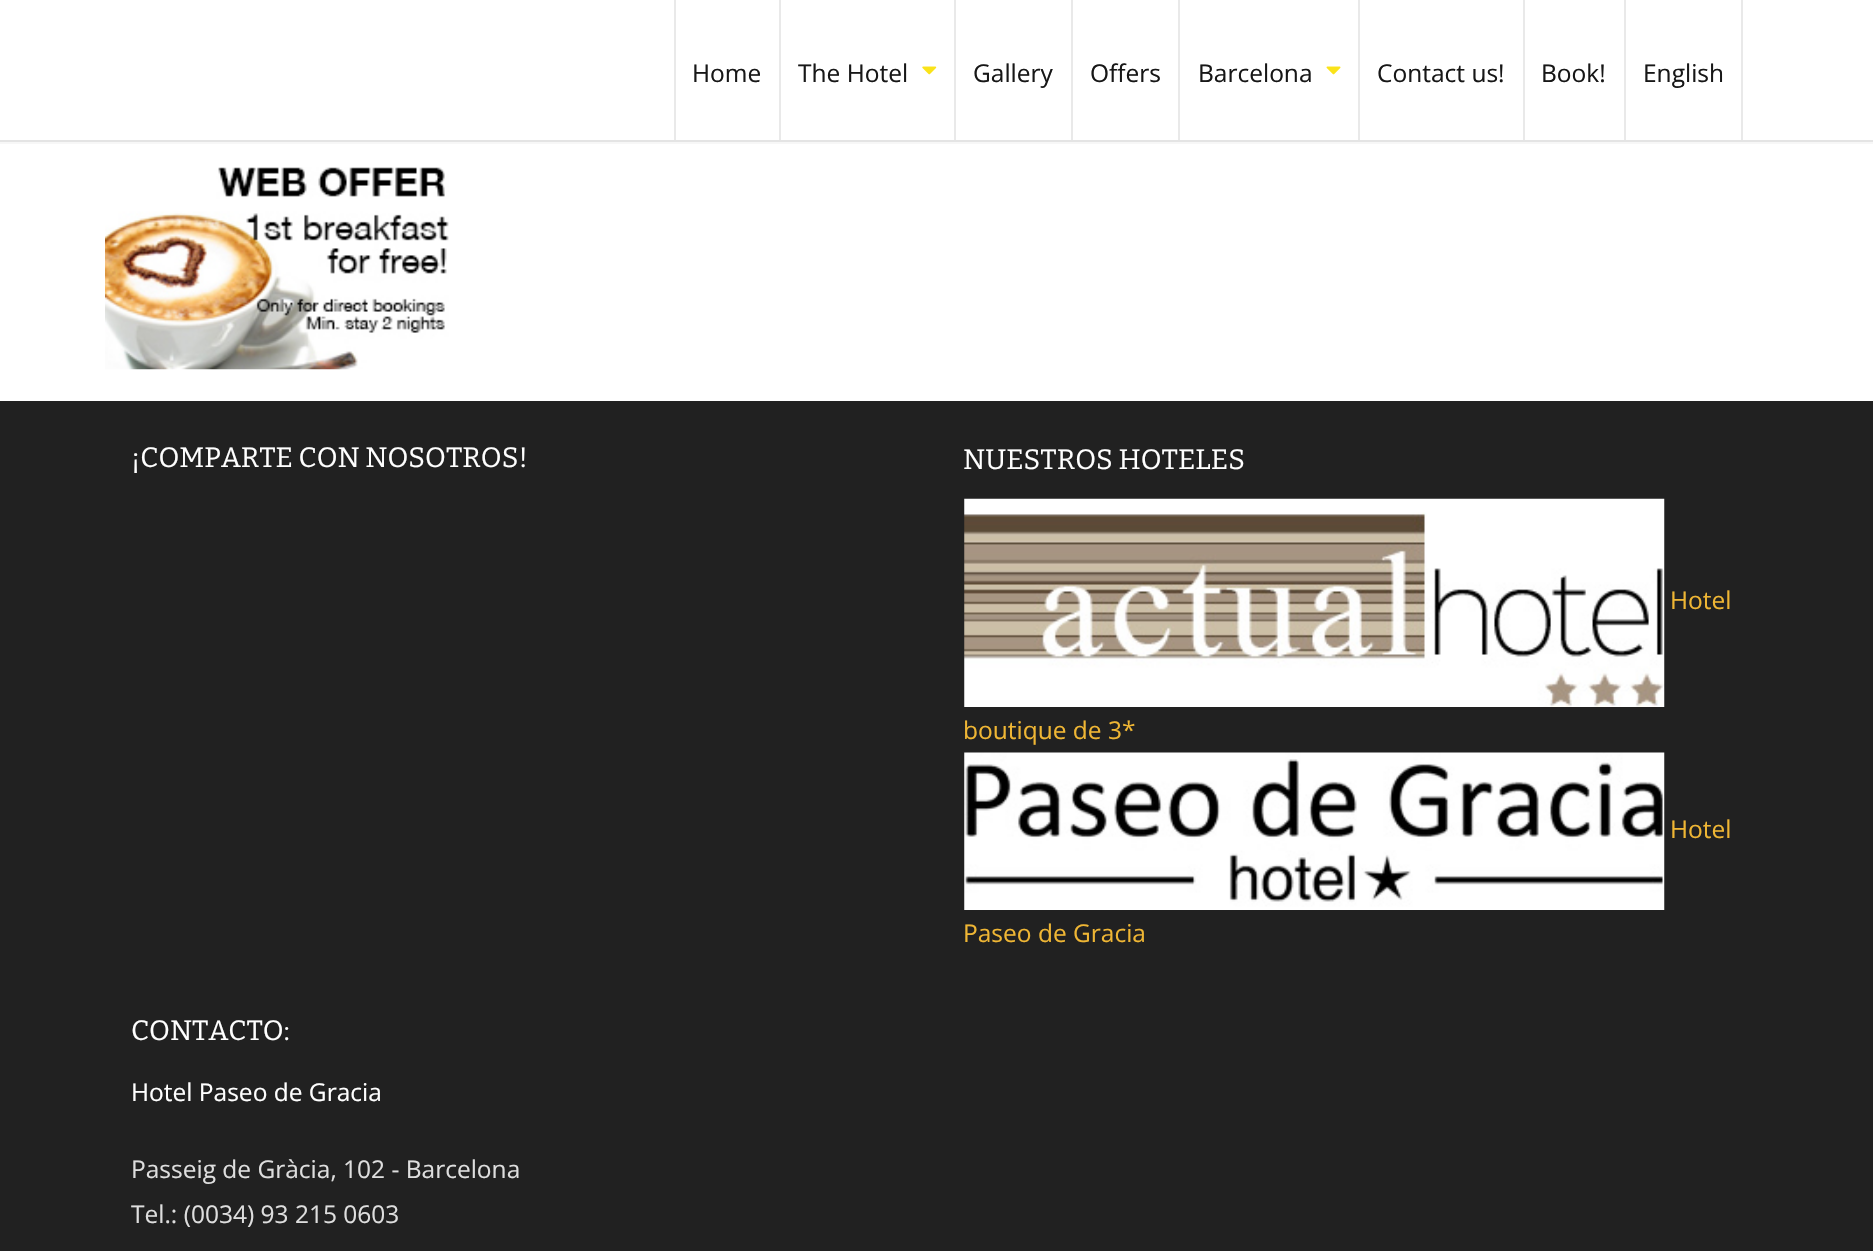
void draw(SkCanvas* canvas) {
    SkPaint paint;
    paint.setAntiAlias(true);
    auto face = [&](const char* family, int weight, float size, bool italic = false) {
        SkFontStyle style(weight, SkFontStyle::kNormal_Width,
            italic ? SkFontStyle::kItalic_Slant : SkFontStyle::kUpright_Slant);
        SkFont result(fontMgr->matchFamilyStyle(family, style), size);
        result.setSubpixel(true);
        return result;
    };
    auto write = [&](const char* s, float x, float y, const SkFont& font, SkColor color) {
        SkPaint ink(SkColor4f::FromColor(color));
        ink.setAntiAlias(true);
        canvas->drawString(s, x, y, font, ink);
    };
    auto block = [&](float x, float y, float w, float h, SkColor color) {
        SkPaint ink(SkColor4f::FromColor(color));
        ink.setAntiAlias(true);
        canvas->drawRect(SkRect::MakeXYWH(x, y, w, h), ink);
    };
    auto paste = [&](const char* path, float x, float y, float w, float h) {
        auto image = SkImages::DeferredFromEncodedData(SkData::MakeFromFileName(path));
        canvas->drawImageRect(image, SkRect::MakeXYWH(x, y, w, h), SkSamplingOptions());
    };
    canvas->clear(SK_ColorWHITE);
    block(0, 142, 1873, 2, SkColorSetRGB(247, 247, 247));
    block(0, 140, 1873, 2, SkColorSetRGB(228, 228, 228));
    block(674, 0, 2, 140, SkColorSetRGB(233, 233, 233));
    auto kFont1 = face("Open Sans", 400, 24.5f);
    write("Home", 692, 82, kFont1, SkColorSetRGB(23, 23, 23));
    block(779, 0, 2, 140, SkColorSetRGB(233, 233, 233));
    write("The Hotel", 798, 82, kFont1, SkColorSetRGB(23, 23, 23));
    paste("pic1.png", 922, 66, 15, 9);
    block(954, 0, 2, 140, SkColorSetRGB(233, 233, 233));
    write("Gallery", 973, 82, kFont1, SkColorSetRGB(23, 23, 23));
    block(1071, 0, 2, 140, SkColorSetRGB(233, 233, 233));
    write("Offers", 1090, 82, kFont1, SkColorSetRGB(23, 23, 23));
    block(1178, 0, 2, 140, SkColorSetRGB(233, 233, 233));
    write("Barcelona", 1198, 82, kFont1, SkColorSetRGB(23, 23, 23));
    paste("pic2.png", 1326, 66, 15, 9);
    block(1358, 0, 2, 140, SkColorSetRGB(233, 233, 233));
    write("Contact us!", 1377, 82, kFont1, SkColorSetRGB(23, 23, 23));
    block(1523, 0, 2, 140, SkColorSetRGB(233, 233, 233));
    write("Book!", 1541, 82, kFont1, SkColorSetRGB(23, 23, 23));
    block(1741, 0, 2, 140, SkColorSetRGB(233, 233, 233));
    block(1624, 0, 2, 140, SkColorSetRGB(233, 233, 233));
    write("English", 1643, 82, kFont1, SkColorSetRGB(23, 23, 23));
    paste("pic3.png", 105, 167, 344, 203);
    block(0, 401, 1873, 850, SkColorSetRGB(33, 33, 33));
    auto kFont2 = face("Bitter", 400, 28);
    write("¡COMPARTE CON NOSOTROS!", 131, 467, kFont2, SK_ColorWHITE);
    write("NUESTROS HOTELES", 963, 469, kFont2, SK_ColorWHITE);
    paste("pic4.png", 964, 498, 701, 209);
    write("Hotel", 1670, 609, kFont1, SkColorSetRGB(239, 182, 52));
    write("boutique de 3*", 963, 739, kFont1, SkColorSetRGB(239, 182, 52));
    paste("pic5.png", 964, 752, 701, 158);
    write("Hotel", 1670, 838, kFont1, SkColorSetRGB(239, 182, 52));
    write("Paseo de Gracia", 963, 942, kFont1, SkColorSetRGB(239, 182, 52));
    write("CONTACTO:", 131, 1040, kFont2, SK_ColorWHITE);
    write("Hotel Paseo de Gracia", 131, 1101, kFont1, SK_ColorWHITE);
    write("Passeig de Gràcia, 102 - Barcelona", 131, 1178, kFont1, SkColorSetRGB(222, 222, 222));
    write("Tel.: (0034) 93 215 0603", 131, 1223, kFont1, SkColorSetRGB(222, 222, 222));
}
